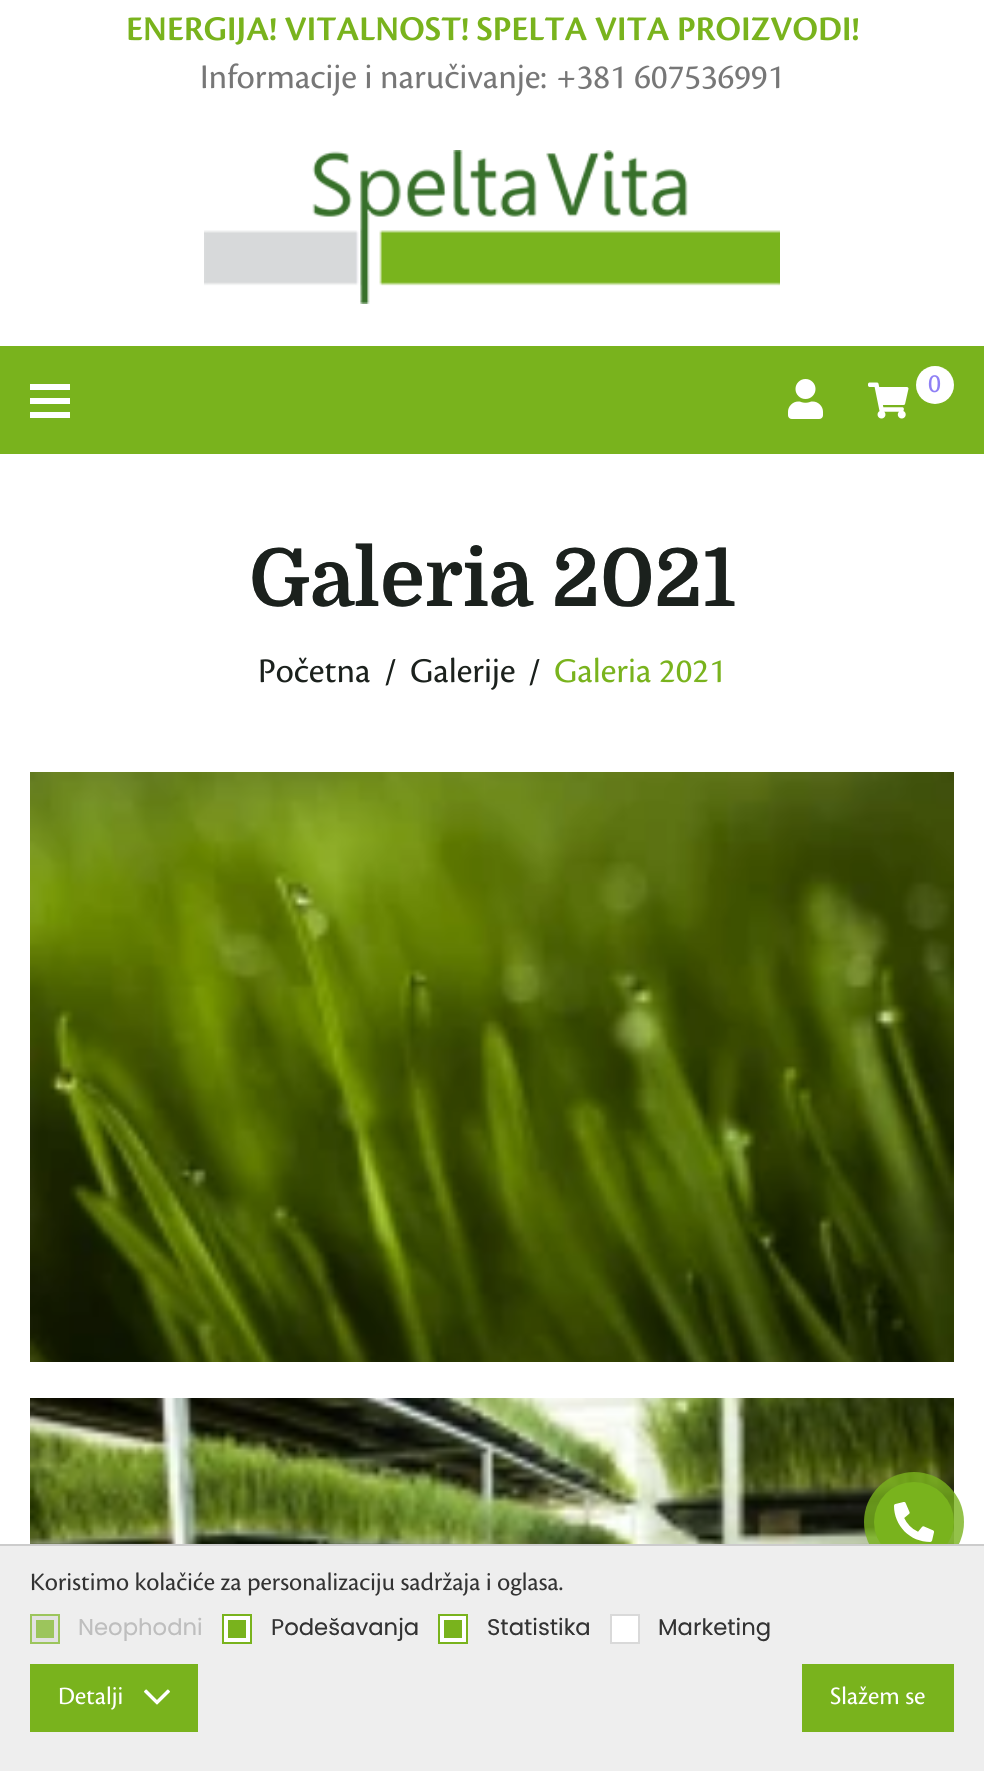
void draw(SkCanvas* canvas) {
    SkPaint paint;
    paint.setAntiAlias(true);
    auto face = [&](const char* family, int weight, float size, bool italic = false) {
        SkFontStyle style(weight, SkFontStyle::kNormal_Width,
            italic ? SkFontStyle::kItalic_Slant : SkFontStyle::kUpright_Slant);
        SkFont result(fontMgr->matchFamilyStyle(family, style), size);
        result.setSubpixel(true);
        return result;
    };
    auto write = [&](const char* s, float x, float y, const SkFont& font, SkColor color) {
        SkPaint ink(SkColor4f::FromColor(color));
        ink.setAntiAlias(true);
        canvas->drawString(s, x, y, font, ink);
    };
    auto block = [&](float x, float y, float w, float h, SkColor color) {
        SkPaint ink(SkColor4f::FromColor(color));
        ink.setAntiAlias(true);
        canvas->drawRect(SkRect::MakeXYWH(x, y, w, h), ink);
    };
    auto paste = [&](const char* path, float x, float y, float w, float h) {
        auto image = SkImages::DeferredFromEncodedData(SkData::MakeFromFileName(path));
        canvas->drawImageRect(image, SkRect::MakeXYWH(x, y, w, h), SkSamplingOptions());
    };
    canvas->clear(SK_ColorWHITE);
    paste("pic1.png", 128, 17, 731, 28);
    paste("pic2.png", 202, 63, 344, 33);
    paste("pic3.png", 558, 65, 222, 25);
    paste("pic4.png", 204, 150, 576, 154);
    block(0, 346, 984, 108, SkColorSetRGB(121, 179, 29));
    block(30, 384, 40, 6, SK_ColorWHITE);
    block(30, 398, 40, 6, SK_ColorWHITE);
    block(30, 412, 40, 6, SK_ColorWHITE);
    paste("pic5.png", 788, 379, 35, 40);
    paste("pic6.png", 868, 382, 41, 37);
    paint.setColor(SK_ColorWHITE);
    canvas->drawCircle(935, 385, 19, paint);
    paste("pic7.png", 928, 375, 13, 18);
    auto kFont1 = face("Domine", 700, 80);
    write("Galeria 2021", 249, 606, kFont1, SkColorSetRGB(27, 33, 29));
    paste("pic8.png", 260, 657, 110, 26);
    paint.setColor(SkColorSetRGB(27, 33, 29));
    canvas->drawPath(SkPathBuilder().moveTo(395.5f, 659).lineTo(389.5f, 680).cubicTo(388, 684.5f, 389, 685.5f, 385.5f, 685.5f).lineTo(391.5f, 664).cubicTo(393, 660, 392, 659, 395.5f, 659).close().detach(), paint);
    paste("pic9.png", 411, 657, 104, 33);
    canvas->drawPath(SkPathBuilder().moveTo(539.5f, 659).lineTo(533.5f, 680).cubicTo(532, 684.5f, 533, 685.5f, 529.5f, 685.5f).lineTo(535.5f, 664).cubicTo(537, 660, 536, 659, 539.5f, 659).close().detach(), paint);
    paste("pic10.png", 555, 657, 166, 26);
    paste("pic11.png", 30, 772, 924, 590);
    paste("pic12.png", 30, 1398, 924, 146);
    paint.setColor(SkColorSetARGB(204, 121, 179, 29));
    canvas->drawCircle(914, 1522, 50, paint);
    paint.setColor(SkColorSetRGB(121, 179, 29));
    canvas->drawCircle(914, 1522, 40, paint);
    paste("pic13.png", 894, 1502, 40, 40);
    block(0, 1546, 984, 225, SkColorSetRGB(238, 238, 238));
    block(0, 1544, 984, 2, SkColorSetRGB(204, 204, 204));
    paste("pic14.png", 31, 1572, 532, 24);
    paint.setColor(SkColorSetRGB(226, 226, 226));
    canvas->drawRect(SkRect::MakeXYWH(31, 1615, 28, 28), paint);
    paint.setStyle(SkPaint::kStroke_Style);
    paint.setStrokeWidth(2);
    paint.setColor(SkColorSetRGB(156, 197, 92));
    canvas->drawRect(SkRect::MakeXYWH(31, 1615, 28, 28), paint);
    auto kFont2 = face("Poppins", 400, 22.75f);
    write("Neophodni", 78, 1635, kFont2, SkColorSetRGB(190, 190, 190));
    block(36, 1620, 18, 18, SkColorSetRGB(156, 197, 92));
    paint.setStyle(SkPaint::kFill_Style);
    paint.setColor(SK_ColorWHITE);
    canvas->drawRect(SkRect::MakeXYWH(223, 1615, 28, 28), paint);
    paint.setStyle(SkPaint::kStroke_Style);
    paint.setColor(SkColorSetRGB(121, 179, 29));
    canvas->drawRect(SkRect::MakeXYWH(223, 1615, 28, 28), paint);
    write("Podešavanja", 271, 1635, kFont2, SkColorSetRGB(51, 51, 51));
    block(228, 1620, 18, 18, SkColorSetRGB(121, 179, 29));
    paint.setStyle(SkPaint::kFill_Style);
    paint.setColor(SK_ColorWHITE);
    canvas->drawRect(SkRect::MakeXYWH(439, 1615, 28, 28), paint);
    paint.setStyle(SkPaint::kStroke_Style);
    paint.setColor(SkColorSetRGB(121, 179, 29));
    canvas->drawRect(SkRect::MakeXYWH(439, 1615, 28, 28), paint);
    write("Statistika", 487, 1635, kFont2, SkColorSetRGB(51, 51, 51));
    block(444, 1620, 18, 18, SkColorSetRGB(121, 179, 29));
    paint.setStyle(SkPaint::kFill_Style);
    paint.setColor(SK_ColorWHITE);
    canvas->drawRect(SkRect::MakeXYWH(611, 1615, 28, 28), paint);
    paint.setStyle(SkPaint::kStroke_Style);
    paint.setColor(SkColorSetRGB(217, 217, 217));
    canvas->drawRect(SkRect::MakeXYWH(611, 1615, 28, 28), paint);
    write("Marketing", 658, 1635, kFont2, SkColorSetRGB(51, 51, 51));
    block(30, 1664, 168, 68, SkColorSetRGB(121, 179, 29));
    paste("pic15.png", 59, 1686, 63, 24);
    paste("pic16.png", 144, 1689, 26, 16);
    block(802, 1664, 152, 68, SkColorSetRGB(121, 179, 29));
    paste("pic17.png", 830, 1686, 95, 19);
}
